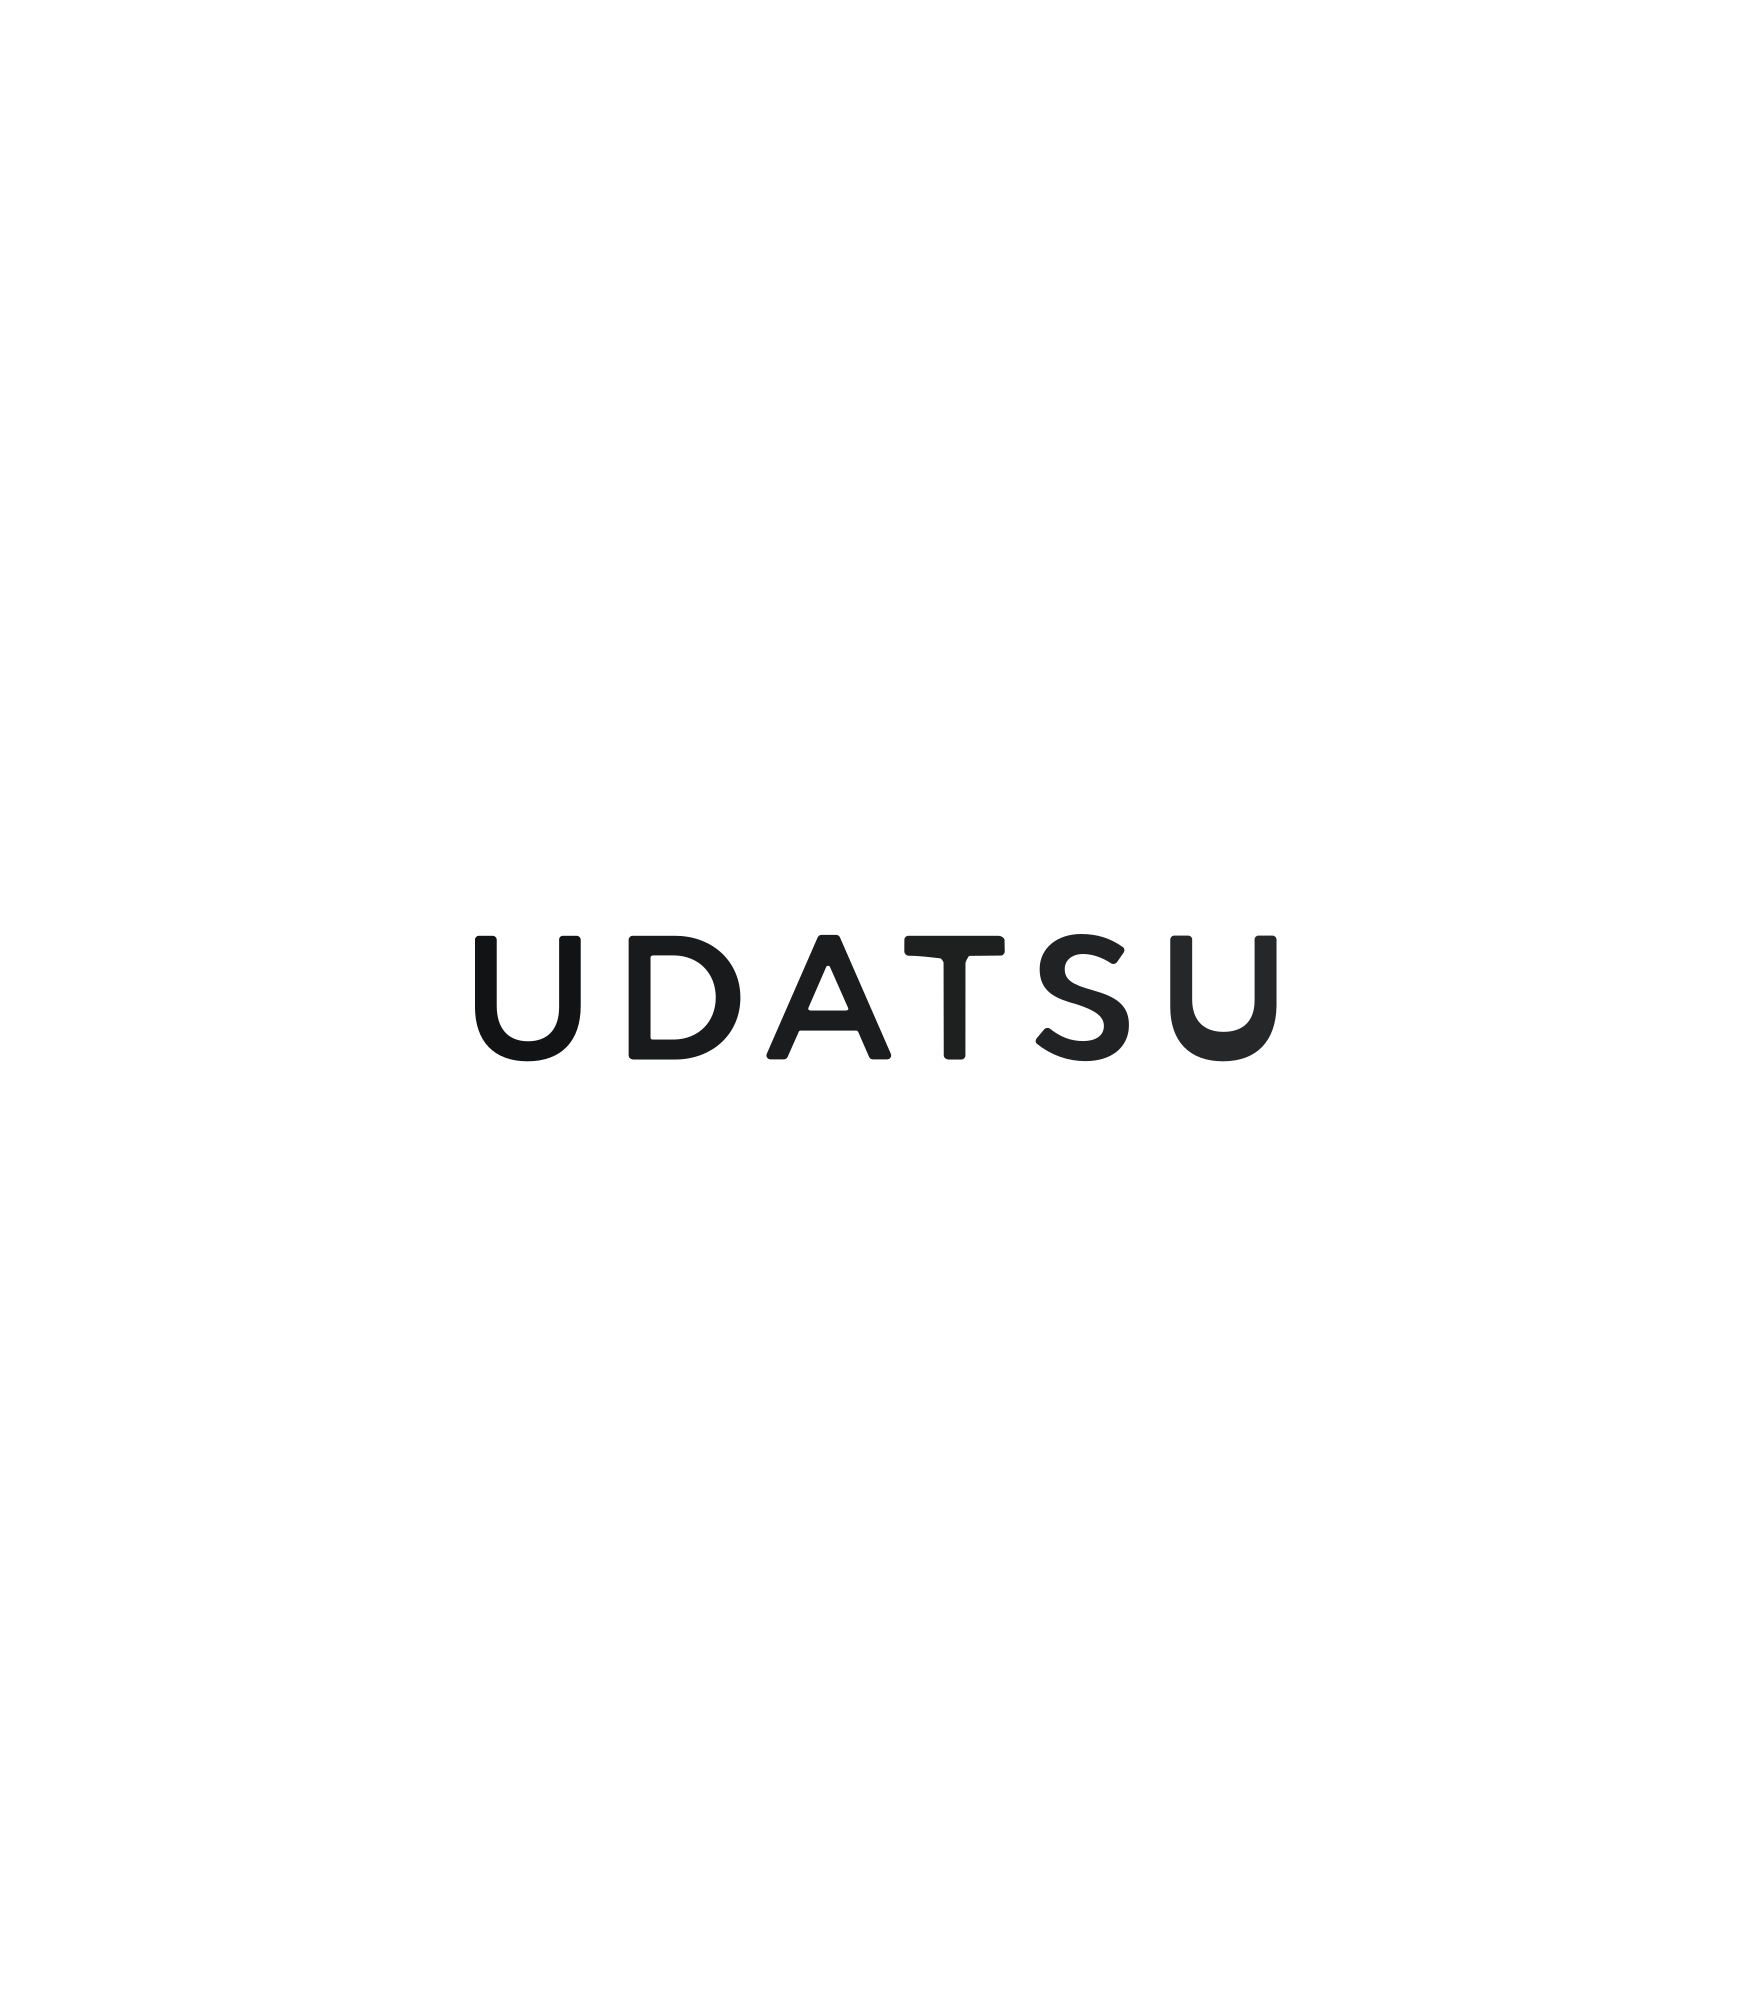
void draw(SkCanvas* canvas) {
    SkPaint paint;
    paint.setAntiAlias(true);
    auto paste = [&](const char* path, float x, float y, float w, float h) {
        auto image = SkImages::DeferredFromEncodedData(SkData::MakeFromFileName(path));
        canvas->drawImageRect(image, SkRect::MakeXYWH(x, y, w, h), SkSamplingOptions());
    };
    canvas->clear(SK_ColorWHITE);
    paste("pic1.png", 475, 934, 802, 128);
}
